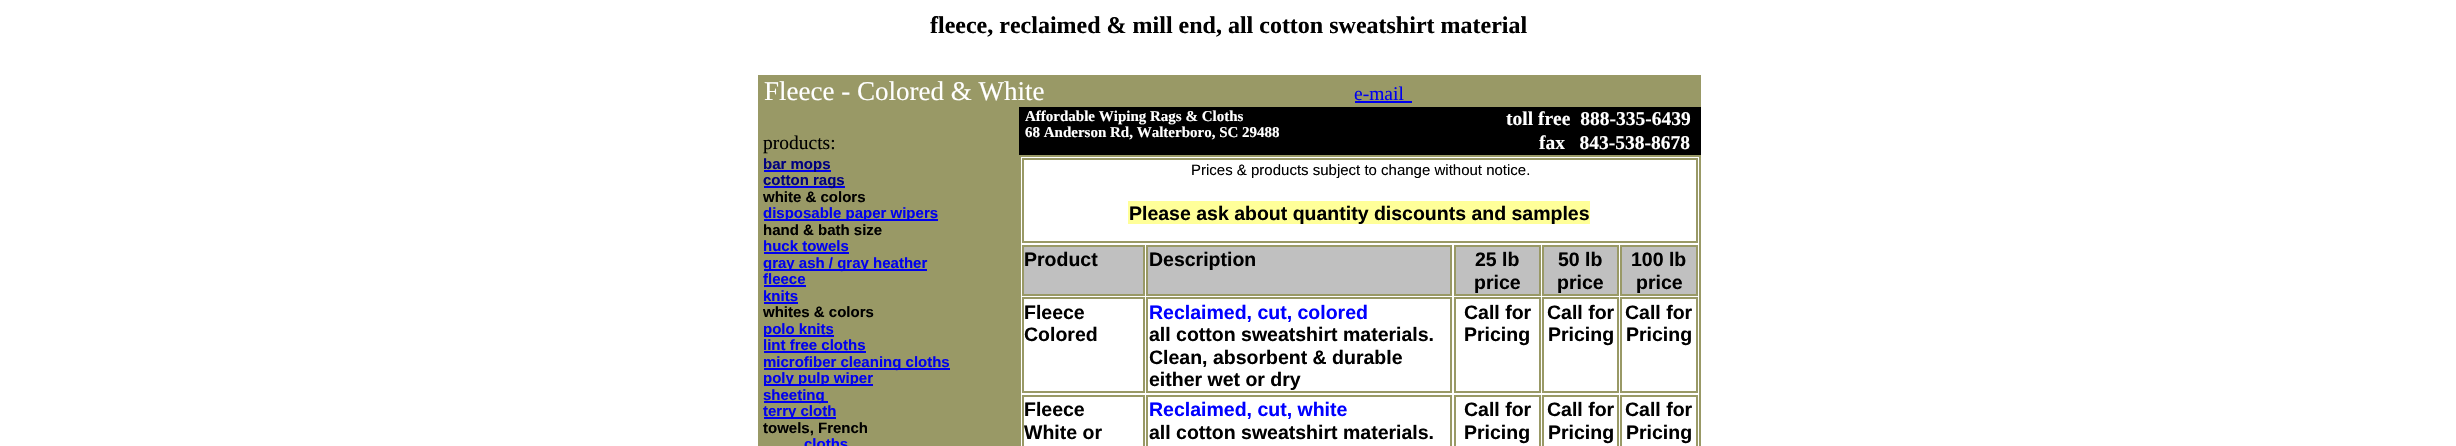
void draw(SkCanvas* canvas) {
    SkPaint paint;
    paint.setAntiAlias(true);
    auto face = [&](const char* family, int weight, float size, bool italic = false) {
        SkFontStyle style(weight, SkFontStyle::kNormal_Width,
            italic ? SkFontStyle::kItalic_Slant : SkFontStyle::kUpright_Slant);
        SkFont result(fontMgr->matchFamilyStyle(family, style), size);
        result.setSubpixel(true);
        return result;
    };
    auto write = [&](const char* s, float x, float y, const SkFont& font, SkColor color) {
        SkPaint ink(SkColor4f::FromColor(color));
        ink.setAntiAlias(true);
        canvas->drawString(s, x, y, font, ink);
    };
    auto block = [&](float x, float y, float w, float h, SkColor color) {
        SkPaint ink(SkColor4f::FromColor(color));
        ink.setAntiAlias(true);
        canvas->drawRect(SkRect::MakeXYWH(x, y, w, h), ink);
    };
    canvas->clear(SK_ColorWHITE);
    auto kFont1 = face("Liberation Serif", 700, 24);
    write("fleece, reclaimed & mill end, all cotton sweatshirt material", 930, 33, kFont1, SK_ColorBLACK);
    block(758, 75, 943, 32, SkColorSetRGB(153, 153, 102));
    auto kFont2 = face("Liberation Serif", 400, 27);
    write("Fleece - Colored & White", 764, 100, kFont2, SK_ColorWHITE);
    auto kFont3 = face("Liberation Serif", 400, 19.5f);
    write("e-mail", 1354, 100, kFont3, SkColorSetRGB(0, 0, 238));
    block(1355, 101, 57, 2, SkColorSetRGB(0, 0, 238));
    block(758, 107, 261, 339, SkColorSetRGB(153, 153, 102));
    block(1019, 107, 682, 48, SK_ColorBLACK);
    auto kFont4 = face("Liberation Serif", 700, 15);
    write("Affordable Wiping Rags & Cloths", 1025, 121, kFont4, SK_ColorWHITE);
    write("68 Anderson Rd, Walterboro, SC 29488", 1025, 137, kFont4, SK_ColorWHITE);
    auto kFont5 = face("Liberation Serif", 700, 19.5f);
    write("toll free  888-335-6439", 1506, 125, kFont5, SK_ColorWHITE);
    write("fax   843-538-8678", 1539, 149, kFont5, SK_ColorWHITE);
    paint.setStyle(SkPaint::kStroke_Style);
    paint.setStrokeWidth(2);
    paint.setColor(SkColorSetRGB(153, 153, 102));
    canvas->drawRect(SkRect::MakeXYWH(1020, 156, 680, 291), paint);
    canvas->drawRect(SkRect::MakeXYWH(1023, 159, 674, 83), paint);
    auto kFont6 = face("Liberation Sans", 400, 15);
    write("Prices & products subject to change without notice.", 1191, 175, kFont6, SK_ColorBLACK);
    block(1128, 201, 462, 23, SkColorSetRGB(255, 255, 153));
    auto kFont7 = face("Liberation Sans", 700, 19.5f);
    write("Please ask about quantity discounts and samples", 1129, 220, kFont7, SK_ColorBLACK);
    paint.setStyle(SkPaint::kFill_Style);
    paint.setColor(SkColorSetRGB(192, 192, 192));
    canvas->drawRect(SkRect::MakeXYWH(1023, 246, 121, 49), paint);
    paint.setStyle(SkPaint::kStroke_Style);
    paint.setColor(SkColorSetRGB(153, 153, 102));
    canvas->drawRect(SkRect::MakeXYWH(1023, 246, 121, 49), paint);
    write("Product", 1024, 266, kFont7, SK_ColorBLACK);
    paint.setStyle(SkPaint::kFill_Style);
    paint.setColor(SkColorSetRGB(192, 192, 192));
    canvas->drawRect(SkRect::MakeXYWH(1147, 246, 304, 49), paint);
    paint.setStyle(SkPaint::kStroke_Style);
    paint.setColor(SkColorSetRGB(153, 153, 102));
    canvas->drawRect(SkRect::MakeXYWH(1147, 246, 304, 49), paint);
    write("Description", 1149, 266, kFont7, SK_ColorBLACK);
    paint.setStyle(SkPaint::kFill_Style);
    paint.setColor(SkColorSetRGB(192, 192, 192));
    canvas->drawRect(SkRect::MakeXYWH(1455, 246, 85, 49), paint);
    paint.setStyle(SkPaint::kStroke_Style);
    paint.setColor(SkColorSetRGB(153, 153, 102));
    canvas->drawRect(SkRect::MakeXYWH(1455, 246, 85, 49), paint);
    write("25 lb", 1475, 266, kFont7, SK_ColorBLACK);
    write("price", 1474, 289, kFont7, SK_ColorBLACK);
    paint.setStyle(SkPaint::kFill_Style);
    paint.setColor(SkColorSetRGB(192, 192, 192));
    canvas->drawRect(SkRect::MakeXYWH(1543, 246, 75, 49), paint);
    paint.setStyle(SkPaint::kStroke_Style);
    paint.setColor(SkColorSetRGB(153, 153, 102));
    canvas->drawRect(SkRect::MakeXYWH(1543, 246, 75, 49), paint);
    write("50 lb", 1558, 266, kFont7, SK_ColorBLACK);
    write("price", 1557, 289, kFont7, SK_ColorBLACK);
    paint.setStyle(SkPaint::kFill_Style);
    paint.setColor(SkColorSetRGB(192, 192, 192));
    canvas->drawRect(SkRect::MakeXYWH(1621, 246, 76, 49), paint);
    paint.setStyle(SkPaint::kStroke_Style);
    paint.setColor(SkColorSetRGB(153, 153, 102));
    canvas->drawRect(SkRect::MakeXYWH(1621, 246, 76, 49), paint);
    write("100 lb", 1631, 266, kFont7, SK_ColorBLACK);
    write("price", 1636, 289, kFont7, SK_ColorBLACK);
    canvas->drawRect(SkRect::MakeXYWH(1023, 298, 121, 94), paint);
    write("Fleece", 1024, 319, kFont7, SK_ColorBLACK);
    write("Colored", 1024, 341, kFont7, SK_ColorBLACK);
    canvas->drawRect(SkRect::MakeXYWH(1147, 298, 304, 94), paint);
    write("Reclaimed, cut, colored", 1149, 319, kFont7, SkColorSetRGB(0, 0, 255));
    write("all cotton sweatshirt materials.", 1149, 341, kFont7, SK_ColorBLACK);
    write("Clean, absorbent & durable", 1149, 364, kFont7, SK_ColorBLACK);
    write("either wet or dry", 1149, 386, kFont7, SK_ColorBLACK);
    canvas->drawRect(SkRect::MakeXYWH(1455, 298, 85, 94), paint);
    write("Call for", 1464, 319, kFont7, SK_ColorBLACK);
    write("Pricing", 1464, 341, kFont7, SK_ColorBLACK);
    canvas->drawRect(SkRect::MakeXYWH(1543, 298, 75, 94), paint);
    write("Call for", 1547, 319, kFont7, SK_ColorBLACK);
    write("Pricing", 1548, 341, kFont7, SK_ColorBLACK);
    canvas->drawRect(SkRect::MakeXYWH(1621, 298, 76, 94), paint);
    write("Call for", 1625, 319, kFont7, SK_ColorBLACK);
    write("Pricing", 1626, 341, kFont7, SK_ColorBLACK);
    canvas->drawRect(SkRect::MakeXYWH(1023, 396, 121, 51), paint);
    write("Fleece", 1024, 416, kFont7, SK_ColorBLACK);
    write("White or", 1024, 439, kFont7, SK_ColorBLACK);
    canvas->drawRect(SkRect::MakeXYWH(1147, 396, 304, 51), paint);
    write("Reclaimed, cut, white", 1149, 416, kFont7, SkColorSetRGB(0, 0, 255));
    write("all cotton sweatshirt materials.", 1149, 439, kFont7, SK_ColorBLACK);
    canvas->drawRect(SkRect::MakeXYWH(1455, 396, 85, 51), paint);
    write("Call for", 1464, 416, kFont7, SK_ColorBLACK);
    write("Pricing", 1464, 439, kFont7, SK_ColorBLACK);
    canvas->drawRect(SkRect::MakeXYWH(1543, 396, 75, 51), paint);
    write("Call for", 1547, 416, kFont7, SK_ColorBLACK);
    write("Pricing", 1548, 439, kFont7, SK_ColorBLACK);
    canvas->drawRect(SkRect::MakeXYWH(1621, 396, 76, 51), paint);
    write("Call for", 1625, 416, kFont7, SK_ColorBLACK);
    write("Pricing", 1626, 439, kFont7, SK_ColorBLACK);
    write("products:", 763, 149, kFont3, SK_ColorBLACK);
    block(764, 170, 67, 2, SkColorSetRGB(0, 0, 238));
    auto kFont8 = face("Liberation Sans", 700, 15);
    write("bar mops", 763, 169, kFont8, SkColorSetRGB(0, 0, 128));
    block(764, 186, 81, 2, SkColorSetRGB(0, 0, 238));
    write("cotton rags", 763, 185, kFont8, SkColorSetRGB(0, 0, 128));
    write("white & colors", 763, 202, kFont8, SK_ColorBLACK);
    block(764, 219, 174, 2, SkColorSetRGB(0, 0, 238));
    write("disposable paper wipers", 763, 218, kFont8, SkColorSetRGB(0, 0, 238));
    write("hand & bath size", 763, 235, kFont8, SK_ColorBLACK);
    write("huck towels", 763, 251, kFont8, SkColorSetRGB(0, 0, 238));
    block(764, 252, 85, 2, SkColorSetRGB(0, 0, 238));
    block(764, 269, 163, 2, SkColorSetRGB(0, 0, 238));
    write("gray ash / gray heather", 763, 268, kFont8, SkColorSetRGB(0, 0, 238));
    write("fleece", 763, 284, kFont8, SkColorSetRGB(0, 0, 238));
    block(764, 285, 42, 2, SkColorSetRGB(0, 0, 238));
    write("knits", 763, 301, kFont8, SkColorSetRGB(0, 0, 238));
    block(764, 302, 34, 2, SkColorSetRGB(0, 0, 238));
    write("whites & colors", 763, 317, kFont8, SK_ColorBLACK);
    block(764, 335, 70, 2, SkColorSetRGB(0, 0, 238));
    write("polo knits", 763, 334, kFont8, SkColorSetRGB(0, 0, 238));
    write("lint free cloths", 763, 350, kFont8, SkColorSetRGB(0, 0, 238));
    block(764, 351, 102, 2, SkColorSetRGB(0, 0, 238));
    block(764, 368, 186, 2, SkColorSetRGB(0, 0, 238));
    write("microfiber cleaning cloths", 763, 367, kFont8, SkColorSetRGB(0, 0, 238));
    block(764, 384, 109, 2, SkColorSetRGB(0, 0, 238));
    write("poly pulp wiper", 763, 383, kFont8, SkColorSetRGB(0, 0, 238));
    block(764, 401, 64, 2, SkColorSetRGB(0, 0, 238));
    write("sheeting", 763, 400, kFont8, SkColorSetRGB(0, 0, 238));
    block(764, 417, 72, 2, SkColorSetRGB(0, 0, 238));
    write("terry cloth", 763, 416, kFont8, SkColorSetRGB(0, 0, 238));
    write("towels, French", 763, 433, kFont8, SK_ColorBLACK);
    write("cloths", 804, 449, kFont8, SkColorSetRGB(0, 0, 255));
}
